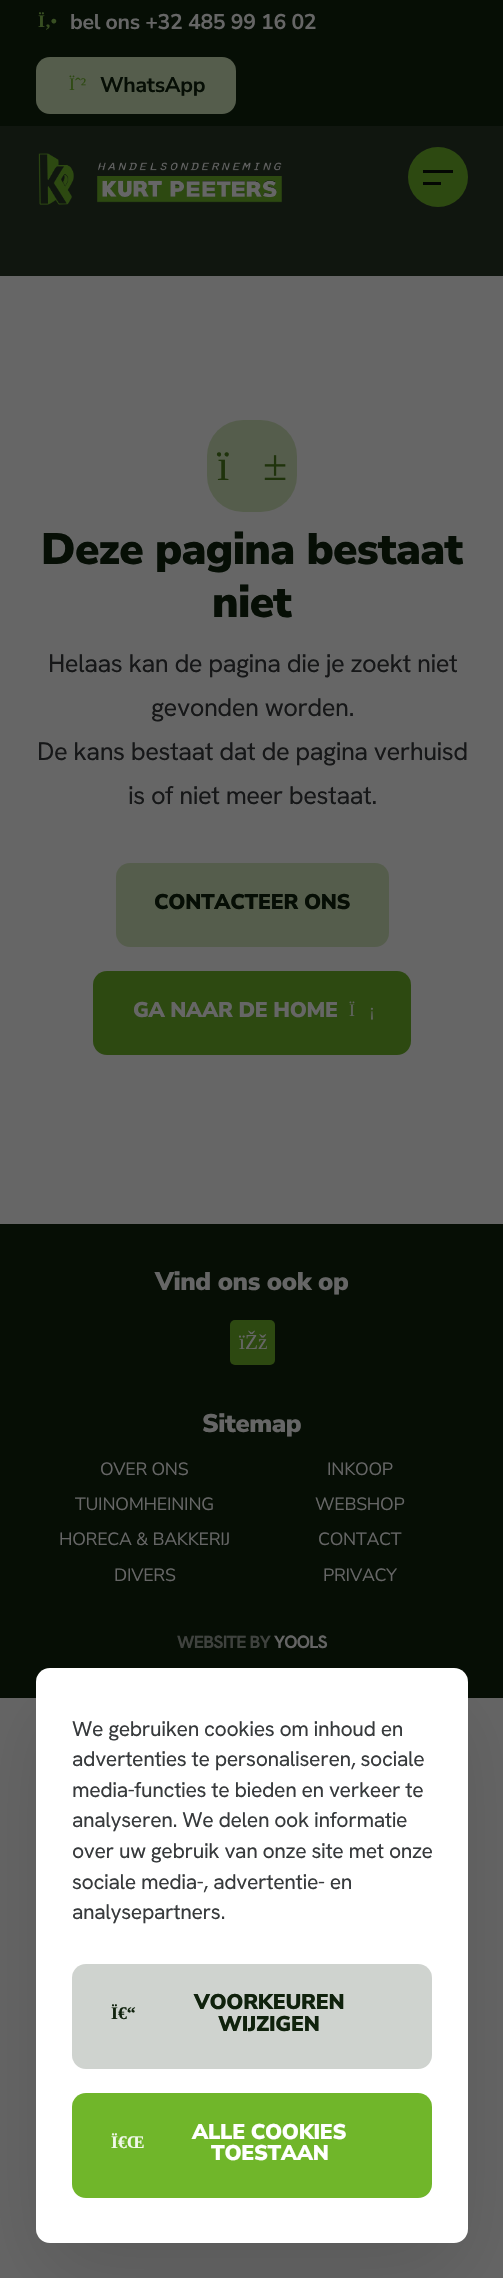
void draw(SkCanvas* canvas) {
    SkPaint paint;
    paint.setAntiAlias(true);
    auto face = [&](const char* family, int weight, float size, bool italic = false) {
        SkFontStyle style(weight, SkFontStyle::kNormal_Width,
            italic ? SkFontStyle::kItalic_Slant : SkFontStyle::kUpright_Slant);
        SkFont result(fontMgr->matchFamilyStyle(family, style), size);
        result.setSubpixel(true);
        return result;
    };
    auto write = [&](const char* s, float x, float y, const SkFont& font, SkColor color) {
        SkPaint ink(SkColor4f::FromColor(color));
        ink.setAntiAlias(true);
        canvas->drawString(s, x, y, font, ink);
    };
    auto writeSpaced = [&](const char* s, float x, float y, const SkFont& font, const SkPaint& ink, float letter, float word) {
        std::vector<SkGlyphID> glyphs(font.countText(s, strlen(s), SkTextEncoding::kUTF8));
        std::vector<float> xs(glyphs.size());
        font.textToGlyphs(s, strlen(s), SkTextEncoding::kUTF8, glyphs);
        font.getXPos(glyphs, xs, x);
        float extra = 0;
        for (size_t i = 0; i < glyphs.size(); i++) {
            xs[i] += extra;
            extra += letter + word * (glyphs[i] == font.unicharToGlyph(' '));
        }
        canvas->drawTextBlob(SkTextBlob::MakeFromPosHGlyphs(glyphs, xs, y, font), 0, 0, ink);
    };
    auto block = [&](float x, float y, float w, float h, SkColor color) {
        SkPaint ink(SkColor4f::FromColor(color));
        ink.setAntiAlias(true);
        canvas->drawRect(SkRect::MakeXYWH(x, y, w, h), ink);
    };
    auto card = [&](float x, float y, float w, float h, float radius, SkColor color) {
        SkPaint ink(SkColor4f::FromColor(color));
        ink.setAntiAlias(true);
        canvas->drawRoundRect(SkRect::MakeXYWH(x, y, w, h), radius, radius, ink);
    };
    auto paste = [&](const char* path, float x, float y, float w, float h) {
        auto image = SkImages::DeferredFromEncodedData(SkData::MakeFromFileName(path));
        canvas->drawImageRect(image, SkRect::MakeXYWH(x, y, w, h), SkSamplingOptions());
    };
    canvas->clear(SkColorSetRGB(102, 102, 102));
    block(0, 0, 503, 126, SkColorSetRGB(6, 14, 5));
    auto kFont1 = face("Liberation Serif", 700, 17.75f);
    write("Ï‚•", 38, 27, kFont1, SkColorSetRGB(56, 79, 34));
    auto kFont2 = face("Nunito Sans", 700, 21.25f);
    paint.setColor(SkColorSetRGB(102, 102, 102));
    writeSpaced("bel ons +32 485 99 16 02", 70, 29, kFont2, paint, -0.3f, 0);
    card(36, 57, 200, 57, 14, SkColorSetRGB(85, 93, 76));
    auto kFont3 = face("Liberation Serif", 400, 17.75f);
    write("Ïˆ²", 69, 90, kFont3, SkColorSetRGB(45, 73, 17));
    paint.setColor(SkColorSetRGB(6, 14, 5));
    writeSpaced("WhatsApp", 100, 92, kFont2, paint, -0.3f, 0);
    block(0, 126, 503, 150, SkColorSetRGB(16, 22, 15));
    paste("pic1.png", 38, 153, 244, 52);
    paint.setColor(SkColorSetRGB(45, 73, 17));
    canvas->drawCircle(438, 177, 30, paint);
    block(423, 170, 30, 3, SkColorSetRGB(3, 7, 3));
    block(423, 182, 18, 3, SkColorSetRGB(3, 7, 3));
    card(207, 420, 90, 92, 36, SkColorSetRGB(85, 93, 76));
    auto kFont4 = face("Liberation Serif", 400, 44);
    paint.setColor(SkColorSetRGB(31, 51, 12));
    writeSpaced("ï", 217, 480, kFont4, paint, -0.7f, 0);
    writeSpaced("±", 263, 480, kFont4, paint, -0.7f, 0);
    auto kFont5 = face("Nunito Sans", 900, 44);
    paint.setColor(SkColorSetRGB(6, 14, 5));
    writeSpaced("Deze pagina bestaat", 41, 564, kFont5, paint, -0.7f, 0);
    writeSpaced("niet", 212, 617, kFont5, paint, -0.7f, 0);
    auto kFont6 = face("Hanken Grotesk", 400, 25.5f);
    paint.setColor(SkColorSetRGB(22, 23, 24));
    writeSpaced("Helaas kan de pagina die je zoekt niet", 48, 672, kFont6, paint, -0.5f, 0);
    writeSpaced("gevonden worden.", 151, 716, kFont6, paint, -0.5f, 0);
    writeSpaced("De kans bestaat dat de pagina verhuisd", 37, 760, kFont6, paint, -0.5f, 0);
    writeSpaced("is of niet meer bestaat.", 128, 804, kFont6, paint, -0.5f, 0);
    card(116, 863, 273, 84, 14, SkColorSetRGB(85, 93, 76));
    auto kFont7 = face("Nunito Sans", 900, 21.25f);
    paint.setColor(SkColorSetRGB(6, 14, 5));
    writeSpaced("CONTACTEER ONS", 154, 909, kFont7, paint, -0.3f, 0);
    card(93, 971, 318, 84, 14, SkColorSetRGB(45, 73, 17));
    paint.setColor(SkColorSetRGB(102, 102, 102));
    writeSpaced("GA NAAR DE HOME", 133, 1017, kFont7, paint, -0.3f, 0);
    write("Ï", 349, 1016, kFont3, SkColorSetRGB(96, 99, 94));
    write("¡", 369, 1016, kFont3, SkColorSetRGB(96, 99, 94));
    block(0, 1224, 503, 474, SkColorSetRGB(6, 14, 5));
    auto kFont8 = face("Nunito Sans", 900, 25.5f);
    writeSpaced("Vind ons ook op", 155, 1290, kFont8, paint, -0.4f, 0);
    card(230, 1320, 45, 45, 5, SkColorSetRGB(45, 73, 17));
    auto kFont9 = face("Liberation Serif", 400, 21.25f);
    write("ïŽž", 239, 1349, kFont9, SkColorSetRGB(102, 102, 102));
    writeSpaced("Sitemap", 202, 1432, kFont8, paint, -0.4f, 0);
    auto kFont10 = face("Nunito Sans", 400, 17.75f);
    writeSpaced("OVER ONS", 100, 1475, kFont10, paint, -0.25f, 0);
    writeSpaced("INKOOP", 327, 1475, kFont10, paint, -0.25f, 0);
    writeSpaced("TUINOMHEINING", 75, 1510, kFont10, paint, -0.25f, 0);
    writeSpaced("WEBSHOP", 315, 1510, kFont10, paint, -0.25f, 0);
    writeSpaced("HORECA & BAKKERIJ", 59, 1545, kFont10, paint, -0.25f, 0);
    writeSpaced("CONTACT", 318, 1545, kFont10, paint, -0.25f, 0);
    writeSpaced("DIVERS", 114, 1581, kFont10, paint, -0.25f, 0);
    writeSpaced("PRIVACY", 323, 1581, kFont10, paint, -0.25f, 0);
    auto kFont11 = face("Hanken Grotesk", 700, 17.75f);
    paint.setColor(SkColorSetRGB(64, 67, 63));
    writeSpaced("WEBSITE BY", 177, 1648, kFont11, paint, -0.75f, 0);
    paint.setColor(SkColorSetRGB(102, 102, 102));
    writeSpaced("YOOLS", 274, 1648, kFont11, paint, -0.75f, 0);
    paint.setColor(SkColorSetARGB(31, 0, 0, 0));
    paint.setMaskFilter(SkMaskFilter::MakeBlur(kNormal_SkBlurStyle, 45));
    canvas->drawRoundRect(SkRect::MakeXYWH(36, 1704, 432, 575), 14, 14, paint);
    paint.setMaskFilter(nullptr);
    card(36, 1668, 432, 575, 14, SK_ColorWHITE);
    auto kFont12 = face("Hanken Grotesk", 400, 21.25f);
    paint.setColor(SkColorSetRGB(55, 58, 60));
    writeSpaced("We gebruiken cookies om inhoud en", 72, 1736, kFont12, paint, -0.4f, 0);
    writeSpaced("advertenties te personaliseren, sociale", 72, 1766, kFont12, paint, -0.4f, 0);
    writeSpaced("media-functies te bieden en verkeer te", 72, 1797, kFont12, paint, -0.4f, 0);
    writeSpaced("analyseren. We delen ook informatie", 72, 1827, kFont12, paint, -0.4f, 0);
    writeSpaced("over uw gebruik van onze site met onze", 72, 1858, kFont12, paint, -0.4f, 0);
    writeSpaced("sociale media-, advertentie- en", 72, 1889, kFont12, paint, -0.4f, 0);
    writeSpaced("analysepartners.", 72, 1919, kFont12, paint, -0.4f, 0);
    card(72, 1964, 360, 105, 14, SkColorSetRGB(207, 211, 207));
    write("Ï€“", 111, 2019, kFont1, SkColorSetRGB(16, 34, 13));
    paint.setColor(SkColorSetRGB(16, 34, 13));
    writeSpaced("VOORKEUREN", 194, 2009, kFont7, paint, -0.3f, 0);
    writeSpaced("WIJZIGEN", 218, 2031, kFont7, paint, -0.3f, 0);
    card(72, 2093, 360, 105, 14, SkColorSetRGB(112, 182, 42));
    write("Ï€Œ", 111, 2148, kFont1, SkColorSetRGB(241, 248, 234));
    paint.setColor(SK_ColorWHITE);
    writeSpaced("ALLE COOKIES", 192, 2139, kFont7, paint, -0.3f, 0);
    writeSpaced("TOESTAAN", 211, 2160, kFont7, paint, -0.3f, 0);
}
